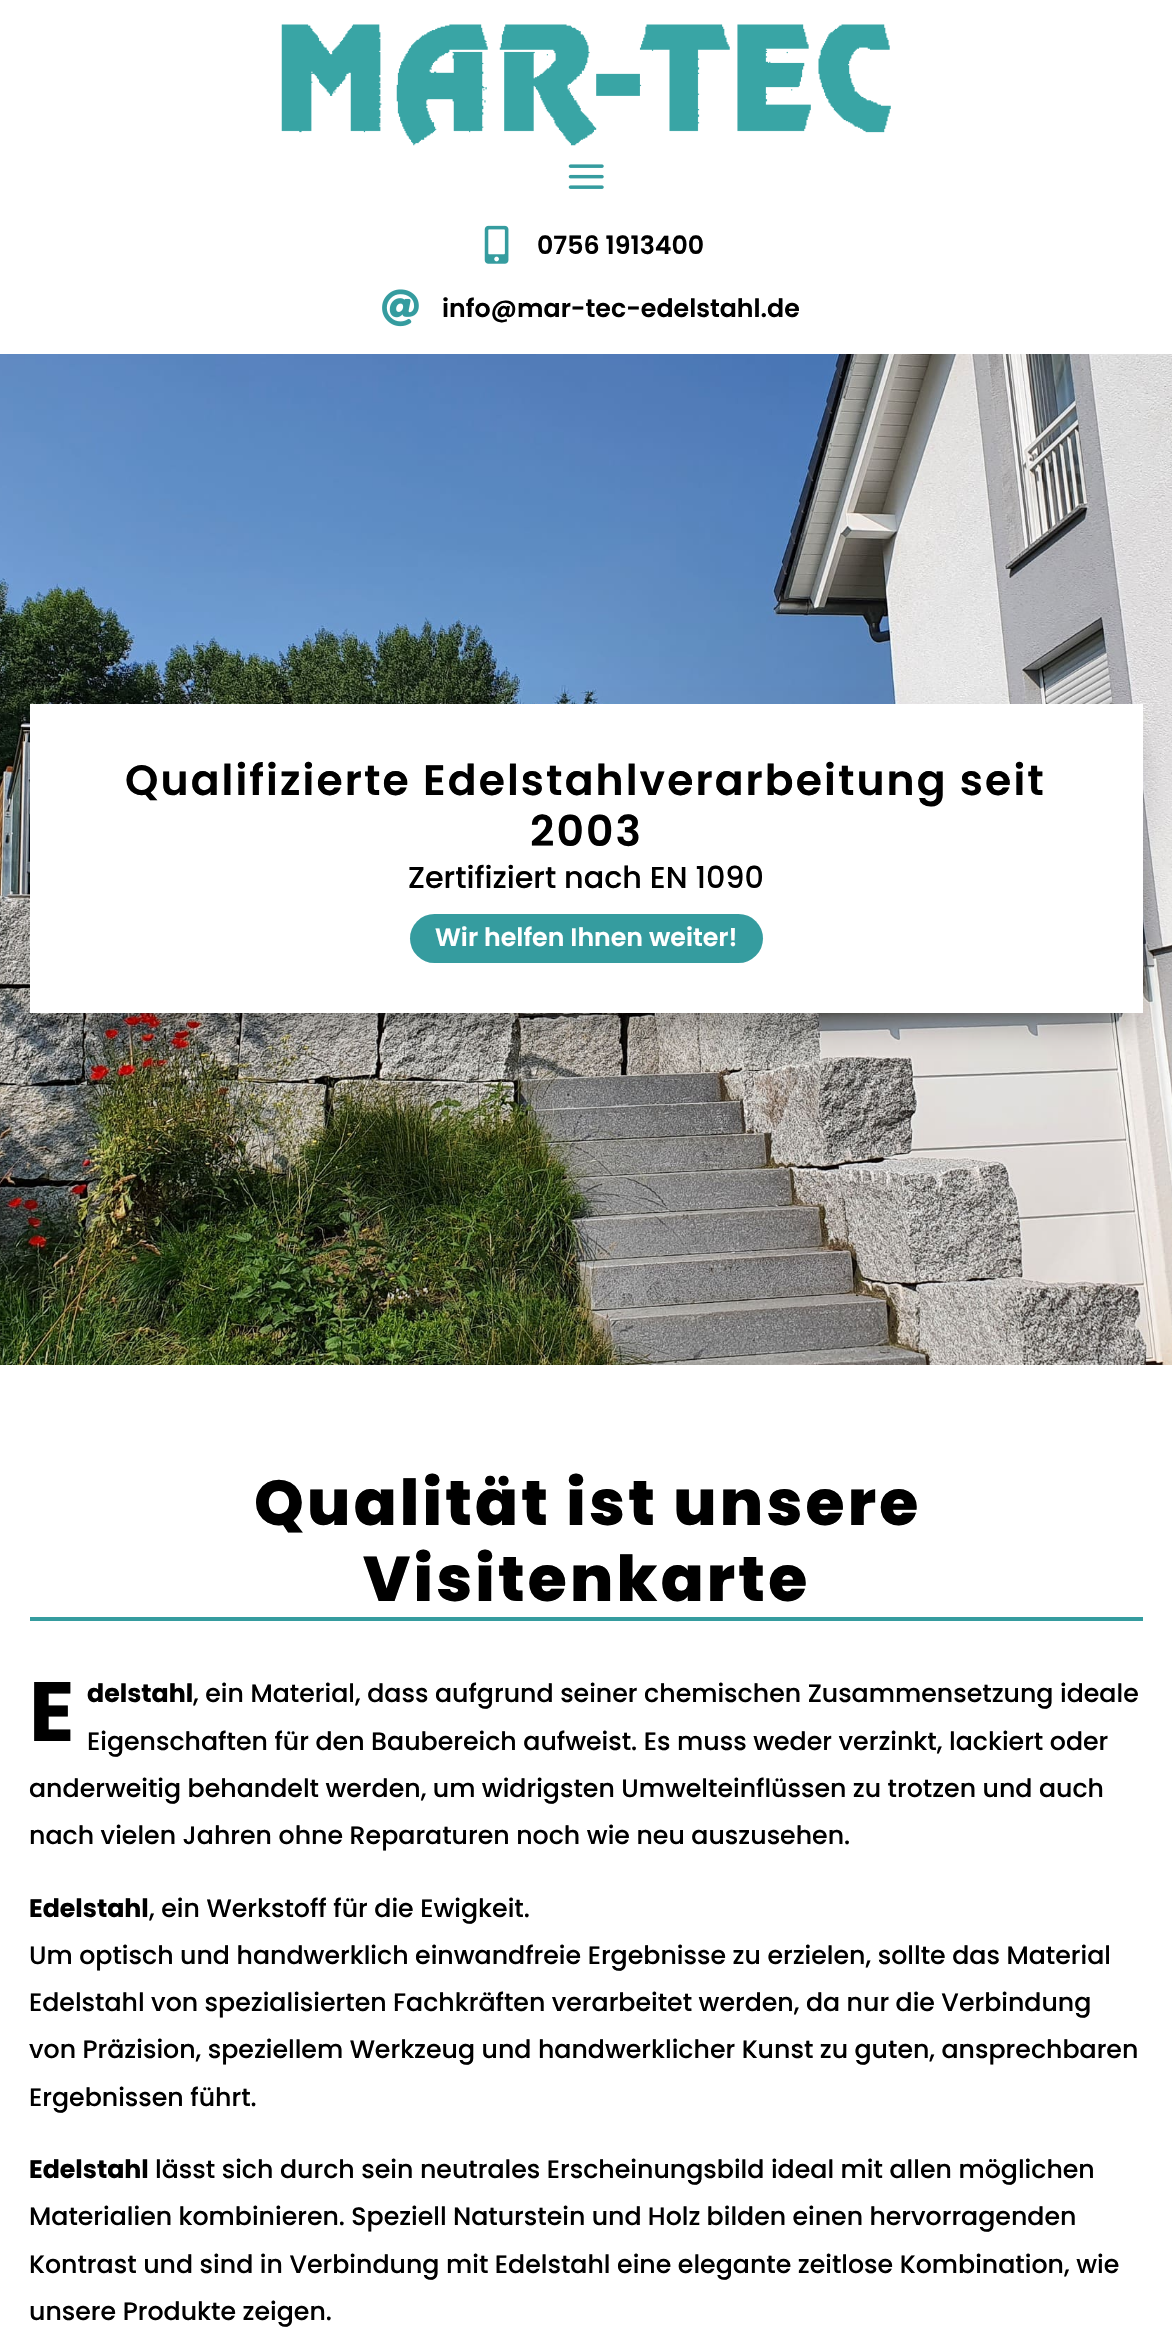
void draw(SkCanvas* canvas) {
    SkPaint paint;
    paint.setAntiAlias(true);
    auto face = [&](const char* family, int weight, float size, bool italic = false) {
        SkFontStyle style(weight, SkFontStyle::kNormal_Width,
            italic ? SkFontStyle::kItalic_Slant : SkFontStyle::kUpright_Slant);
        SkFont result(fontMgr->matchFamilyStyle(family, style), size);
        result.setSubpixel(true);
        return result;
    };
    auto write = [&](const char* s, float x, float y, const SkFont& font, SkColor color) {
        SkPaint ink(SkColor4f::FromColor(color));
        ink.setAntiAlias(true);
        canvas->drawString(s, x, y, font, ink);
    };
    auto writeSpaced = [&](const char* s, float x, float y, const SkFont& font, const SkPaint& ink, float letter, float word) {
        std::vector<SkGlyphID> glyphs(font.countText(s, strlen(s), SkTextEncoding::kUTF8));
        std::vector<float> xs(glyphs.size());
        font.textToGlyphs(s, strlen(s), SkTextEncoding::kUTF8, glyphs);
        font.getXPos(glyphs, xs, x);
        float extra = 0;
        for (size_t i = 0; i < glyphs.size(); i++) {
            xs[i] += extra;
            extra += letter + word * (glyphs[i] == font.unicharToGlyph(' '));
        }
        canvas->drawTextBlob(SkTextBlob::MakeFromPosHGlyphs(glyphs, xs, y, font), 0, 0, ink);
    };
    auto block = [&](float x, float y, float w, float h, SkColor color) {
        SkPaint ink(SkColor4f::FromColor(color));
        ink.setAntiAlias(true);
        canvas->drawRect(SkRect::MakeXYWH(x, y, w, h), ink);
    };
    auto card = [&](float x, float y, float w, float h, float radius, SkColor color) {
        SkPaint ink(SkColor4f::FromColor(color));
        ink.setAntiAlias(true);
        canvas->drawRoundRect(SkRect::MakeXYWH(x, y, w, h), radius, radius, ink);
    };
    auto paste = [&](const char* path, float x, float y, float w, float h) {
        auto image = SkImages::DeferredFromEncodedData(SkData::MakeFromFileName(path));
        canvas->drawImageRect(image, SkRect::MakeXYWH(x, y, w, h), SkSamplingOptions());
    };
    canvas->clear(SK_ColorWHITE);
    paste("pic1.png", 281, 24, 610, 122);
    paste("pic2.png", 568, 164, 36, 25);
    paste("pic3.png", 484, 225, 25, 39);
    auto kFont1 = face("Poppins", 600, 25.25f);
    write("0756 1913400", 537, 254, kFont1, SK_ColorBLACK);
    paste("pic4.png", 382, 289, 37, 38);
    write("info@mar-tec-edelstahl.de", 442, 317, kFont1, SK_ColorBLACK);
    paste("pic5.png", 0, 354, 1172, 1011);
    paint.setColor(SkColorSetARGB(77, 0, 0, 0));
    paint.setMaskFilter(SkMaskFilter::MakeBlur(kNormal_SkBlurStyle, 16));
    canvas->drawRect(SkRect::MakeXYWH(40, 735, 1092, 289), paint);
    paint.setMaskFilter(nullptr);
    block(30, 704, 1113, 309, SK_ColorWHITE);
    auto kFont2 = face("Poppins", 600, 42.45f);
    paint.setColor(SK_ColorBLACK);
    writeSpaced("Qualifizierte Edelstahlverarbeitung seit", 125, 795, kFont2, paint, 2.1f, 0);
    writeSpaced("2003", 530, 846, kFont2, paint, 2.1f, 0);
    auto kFont3 = face("Poppins", 500, 30.25f);
    write("Zertifiziert nach EN 1090", 408, 888, kFont3, SK_ColorBLACK);
    card(410, 914, 353, 49, 24.5f, SkColorSetRGB(53, 156, 159));
    write("Wir helfen Ihnen weiter!", 435, 946, kFont1, SK_ColorWHITE);
    block(30, 1617, 1113, 4, SkColorSetRGB(53, 156, 159));
    auto kFont4 = face("Poppins", 800, 63.25f);
    writeSpaced("Qualität ist unsere", 254, 1525, kFont4, paint, 3.2f, 0);
    writeSpaced("Visitenkarte", 363, 1601, kFont4, paint, 3.2f, 0);
    auto kFont5 = face("Poppins", 700, 84);
    write("E", 29, 1741, kFont5, SK_ColorBLACK);
    auto kFont6 = face("Poppins", 700, 25.25f);
    write("delstahl", 87, 1702, kFont6, SK_ColorBLACK);
    auto kFont7 = face("Poppins", 500, 25.25f);
    write(", ein Material, dass aufgrund seiner chemischen Zusammensetzung ideale", 193, 1702, kFont7, SK_ColorBLACK);
    write("Eigenschaften für den Baubereich aufweist. Es muss weder verzinkt, lackiert oder", 87, 1750, kFont7, SK_ColorBLACK);
    writeSpaced("anderweitig behandelt werden, um widrigsten Umwelteinflüssen zu trotzen und auch", 29, 1797, kFont7, paint, 0, -0.1f);
    write("nach vielen Jahren ohne Reparaturen noch wie neu auszusehen.", 29, 1844, kFont7, SK_ColorBLACK);
    write("Edelstahl", 29, 1917, kFont6, SK_ColorBLACK);
    write(", ein Werkstoff für die Ewigkeit.", 149, 1917, kFont7, SK_ColorBLACK);
    write("Um optisch und handwerklich einwandfreie Ergebnisse zu erzielen, sollte das Material", 29, 1964, kFont7, SK_ColorBLACK);
    writeSpaced("Edelstahl von spezialisierten Fachkräften verarbeitet werden, da nur die Verbindung", 29, 2011, kFont7, paint, 0, -0.1f);
    writeSpaced("von Präzision, speziellem Werkzeug und handwerklicher Kunst zu guten, ansprechbaren", 29, 2058, kFont7, paint, 0, -0.1f);
    write("Ergebnissen führt.", 29, 2106, kFont7, SK_ColorBLACK);
    write("Edelstahl", 29, 2178, kFont6, SK_ColorBLACK);
    write("lässt sich durch sein neutrales Erscheinungsbild ideal mit allen möglichen", 155, 2178, kFont7, SK_ColorBLACK);
    writeSpaced("Materialien kombinieren. Speziell Naturstein und Holz bilden einen hervorragenden", 29, 2225, kFont7, paint, 0, -0.25f);
    write("Kontrast und sind in Verbindung mit Edelstahl eine elegante zeitlose Kombination, wie", 29, 2273, kFont7, SK_ColorBLACK);
    write("unsere Produkte zeigen.", 29, 2320, kFont7, SK_ColorBLACK);
}
